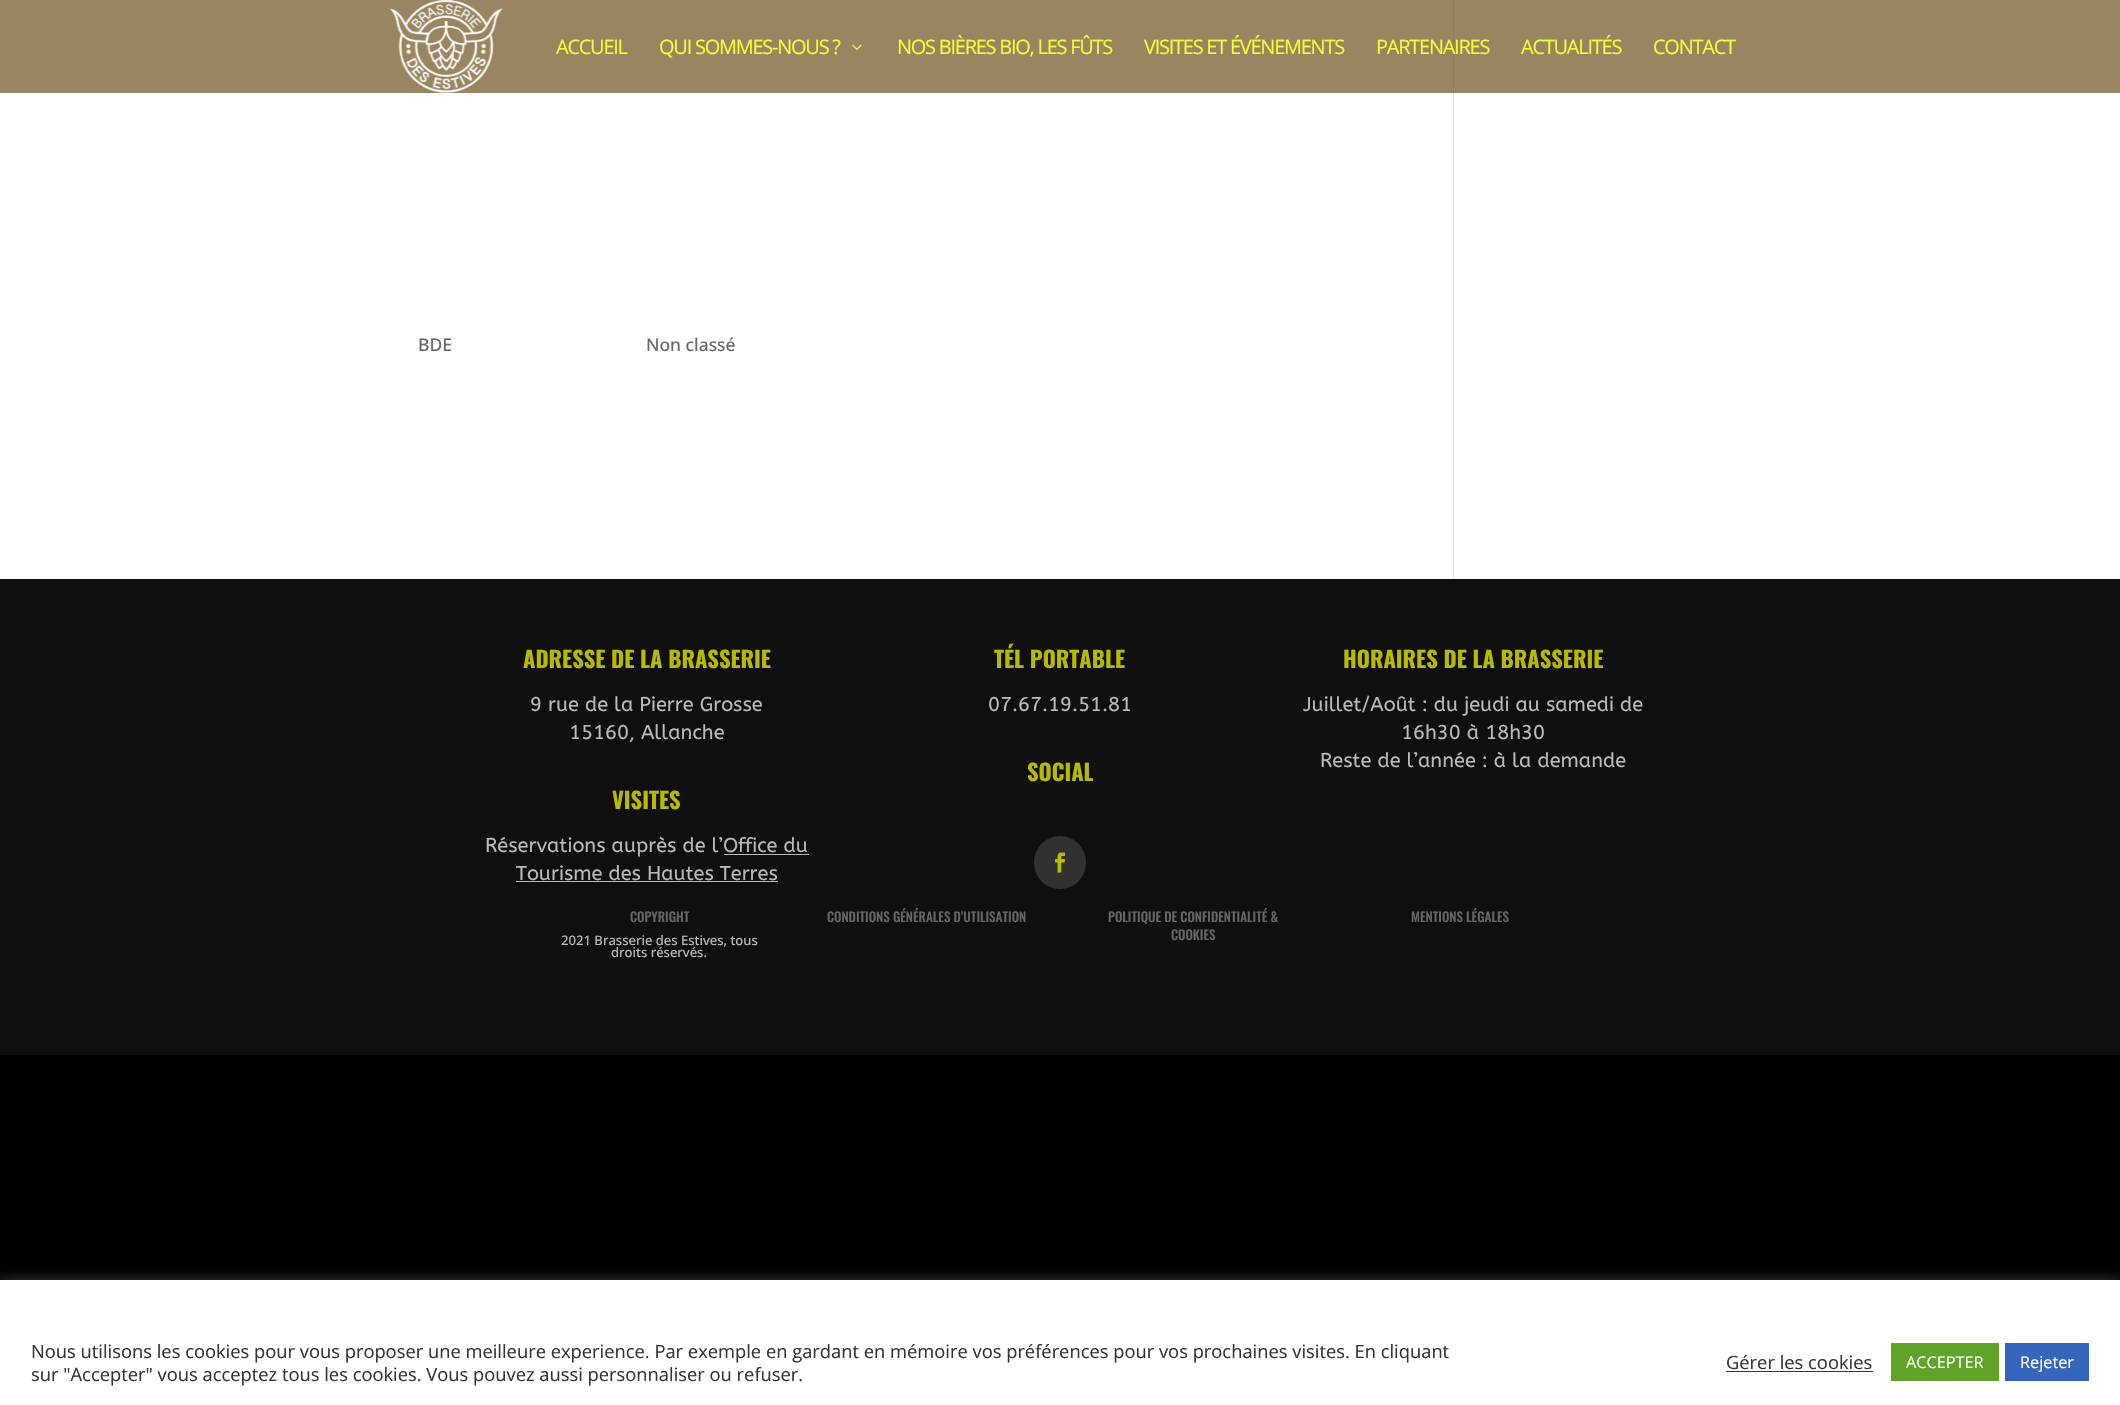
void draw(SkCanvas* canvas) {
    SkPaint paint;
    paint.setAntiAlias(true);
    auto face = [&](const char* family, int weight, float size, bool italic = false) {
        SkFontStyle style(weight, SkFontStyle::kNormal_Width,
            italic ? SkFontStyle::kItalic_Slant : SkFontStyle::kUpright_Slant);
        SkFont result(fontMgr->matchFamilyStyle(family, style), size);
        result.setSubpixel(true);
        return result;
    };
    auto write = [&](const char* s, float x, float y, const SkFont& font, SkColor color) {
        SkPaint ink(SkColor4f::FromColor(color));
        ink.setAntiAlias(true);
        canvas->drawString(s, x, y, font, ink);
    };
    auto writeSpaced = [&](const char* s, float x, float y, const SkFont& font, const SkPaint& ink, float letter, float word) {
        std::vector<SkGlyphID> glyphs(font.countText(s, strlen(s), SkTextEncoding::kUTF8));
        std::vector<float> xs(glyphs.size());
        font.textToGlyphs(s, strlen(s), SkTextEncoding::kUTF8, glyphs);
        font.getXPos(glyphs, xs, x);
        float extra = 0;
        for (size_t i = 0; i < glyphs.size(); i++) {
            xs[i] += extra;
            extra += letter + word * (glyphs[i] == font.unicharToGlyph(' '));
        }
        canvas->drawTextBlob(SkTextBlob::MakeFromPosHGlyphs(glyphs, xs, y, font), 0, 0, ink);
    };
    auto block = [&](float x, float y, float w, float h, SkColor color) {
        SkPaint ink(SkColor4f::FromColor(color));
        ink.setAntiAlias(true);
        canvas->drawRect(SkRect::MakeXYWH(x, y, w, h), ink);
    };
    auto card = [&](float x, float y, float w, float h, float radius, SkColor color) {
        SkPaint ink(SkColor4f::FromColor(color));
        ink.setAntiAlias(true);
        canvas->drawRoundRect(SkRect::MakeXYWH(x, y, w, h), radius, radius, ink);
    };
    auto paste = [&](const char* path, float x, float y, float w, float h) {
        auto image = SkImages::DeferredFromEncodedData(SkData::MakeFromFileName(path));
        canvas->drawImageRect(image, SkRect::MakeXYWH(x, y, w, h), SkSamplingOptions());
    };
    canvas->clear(SK_ColorBLACK);
    block(0, 0, 2120, 93, SkColorSetRGB(153, 133, 96));
    paste("pic1.png", 389, 0, 114, 93);
    auto kFont1 = face("Open Sans", 400, 20);
    paint.setColor(SkColorSetRGB(235, 255, 58));
    writeSpaced("ACCUEIL", 556, 54, kFont1, paint, -1.25f, 0);
    writeSpaced("QUI SOMMES-NOUS ?", 659, 54, kFont1, paint, -1.25f, 0);
    paste("pic2.png", 852, 44, 10, 6);
    writeSpaced("NOS BIÈRES BIO, LES FÛTS", 897, 54, kFont1, paint, -1.25f, 0);
    writeSpaced("VISITES ET ÉVÉNEMENTS", 1144, 54, kFont1, paint, -1.25f, 0);
    block(1453, 0, 1, 93, SkColorSetRGB(144, 125, 87));
    writeSpaced("PARTENAIRES", 1376, 54, kFont1, paint, -1.25f, 0);
    writeSpaced("ACTUALITÉS", 1521, 54, kFont1, paint, -1.25f, 0);
    writeSpaced("CONTACT", 1653, 54, kFont1, paint, -1.25f, 0);
    block(0, 93, 2120, 486, SK_ColorWHITE);
    auto kFont2 = face("Open Sans", 500, 17.5f);
    write("BDE", 418, 351, kFont2, SkColorSetRGB(102, 102, 102));
    write("Non classé", 646, 351, kFont2, SkColorSetRGB(102, 102, 102));
    block(1453, 93, 1, 486, SkColorSetRGB(226, 226, 226));
    block(0, 579, 2120, 476, SkColorSetRGB(15, 15, 15));
    auto kFont3 = face("Oswald", 700, 22.5f);
    write("ADRESSE DE LA BRASSERIE", 523, 668, kFont3, SkColorSetRGB(184, 186, 0));
    auto kFont4 = face("ABeeZee", 400, 20);
    write("9 rue de la Pierre Grosse", 530, 711, kFont4, SkColorSetRGB(186, 186, 186));
    write("15160, Allanche", 569, 739, kFont4, SkColorSetRGB(186, 186, 186));
    write("VISITES", 612, 809, kFont3, SkColorSetRGB(184, 186, 0));
    write("Réservations auprès de l’Office du", 485, 852, kFont4, SkColorSetRGB(186, 186, 186));
    write("Tourisme des Hautes Terres", 516, 880, kFont4, SkColorSetRGB(186, 186, 186));
    block(724, 854, 85, 1, SkColorSetRGB(186, 186, 186));
    block(516, 881, 262, 1, SkColorSetRGB(186, 186, 186));
    write("TÉL PORTABLE", 994, 668, kFont3, SkColorSetRGB(184, 186, 0));
    write("07.67.19.51.81", 988, 711, kFont4, SkColorSetRGB(186, 186, 186));
    write("SOCIAL", 1027, 781, kFont3, SkColorSetRGB(184, 186, 0));
    card(1034, 836, 52, 53, 26, SkColorSetRGB(49, 49, 49));
    paste("pic3.png", 1055, 852, 10, 21);
    write("HORAIRES DE LA BRASSERIE", 1343, 668, kFont3, SkColorSetRGB(184, 186, 0));
    write("Juillet/Août : du jeudi au samedi de", 1303, 711, kFont4, SkColorSetRGB(186, 186, 186));
    write("16h30 à 18h30", 1401, 739, kFont4, SkColorSetRGB(186, 186, 186));
    write("Reste de l’année : à la demande", 1320, 767, kFont4, SkColorSetRGB(186, 186, 186));
    auto kFont5 = face("Oswald", 500, 13.1f);
    write("COPYRIGHT", 630, 922, kFont5, SkColorSetRGB(102, 102, 102));
    auto kFont6 = face("Open Sans", 500, 13.1f);
    write("2021 Brasserie des Estives, tous", 561, 945, kFont6, SkColorSetRGB(186, 186, 186));
    write("droits réservés.", 611, 957, kFont6, SkColorSetRGB(186, 186, 186));
    write("CONDITIONS GÉNÉRALES D’UTILISATION", 827, 922, kFont5, SkColorSetRGB(102, 102, 102));
    write("POLITIQUE DE CONFIDENTIALITÉ &", 1108, 922, kFont5, SkColorSetRGB(102, 102, 102));
    write("COOKIES", 1171, 940, kFont5, SkColorSetRGB(102, 102, 102));
    write("MENTIONS LÉGALES", 1411, 922, kFont5, SkColorSetRGB(102, 102, 102));
    paint.setColor(SkColorSetARGB(77, 172, 171, 171));
    paint.setMaskFilter(SkMaskFilter::MakeBlur(kNormal_SkBlurStyle, 6));
    canvas->drawRect(SkRect::MakeXYWH(0, 1279, 2120, 125), paint);
    paint.setMaskFilter(nullptr);
    block(0, 1280, 2120, 125, SK_ColorWHITE);
    auto kFont7 = face("Open Sans", 400, 18.33f);
    write("Nous utilisons les cookies pour vous proposer une meilleure experience. Par exemple en gardant en mémoire vos préférences pour vos prochaines visites. En cliquant", 31, 1358, kFont7, SkColorSetRGB(51, 51, 51));
    write("sur \"Accepter\" vous acceptez tous les cookies. Vous pouvez aussi personnaliser ou refuser.", 31, 1381, kFont7, SkColorSetRGB(51, 51, 51));
    write("Gérer les cookies", 1726, 1369, kFont7, SkColorSetRGB(51, 51, 51));
    block(1726, 1371, 147, 1, SkColorSetRGB(51, 51, 51));
    block(1891, 1343, 108, 38, SkColorSetRGB(97, 162, 41));
    auto kFont8 = face("Open Sans", 400, 16.25f);
    write("ACCEPTER", 1906, 1368, kFont8, SK_ColorWHITE);
    block(2005, 1343, 84, 38, SkColorSetRGB(53, 102, 187));
    write("Rejeter", 2020, 1368, kFont8, SK_ColorWHITE);
}
